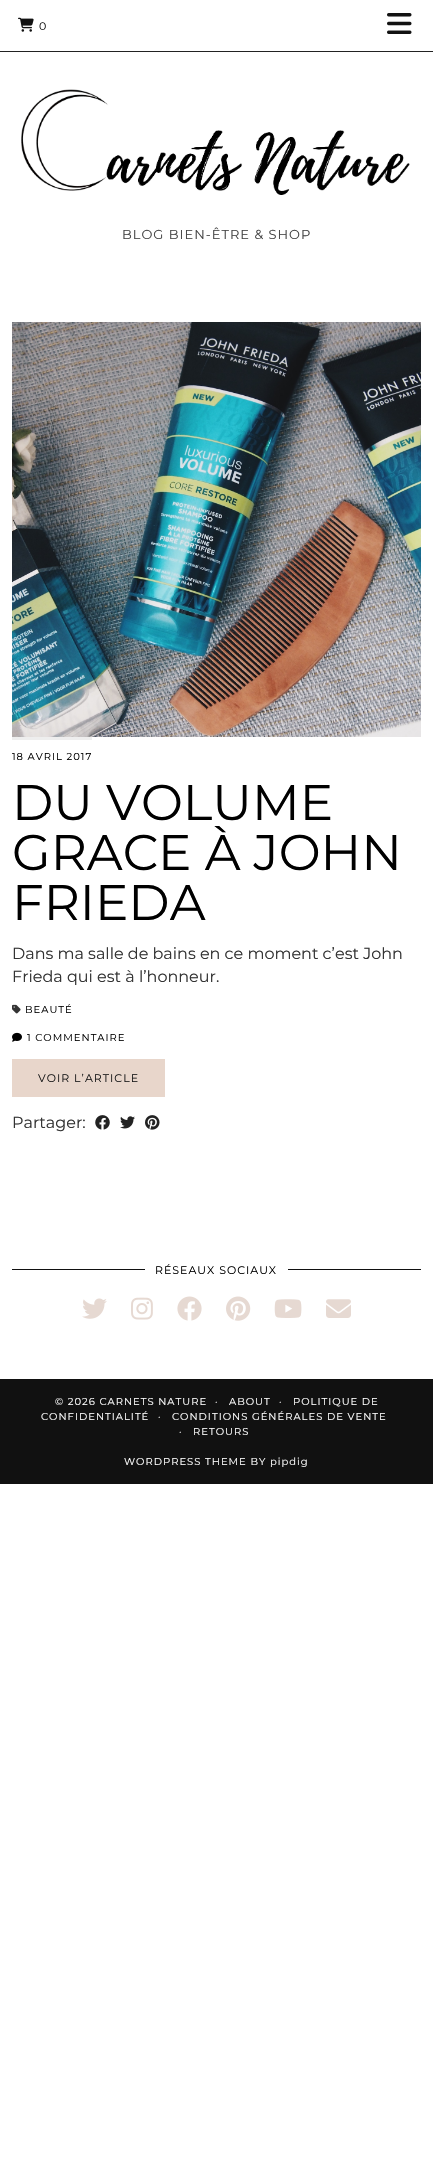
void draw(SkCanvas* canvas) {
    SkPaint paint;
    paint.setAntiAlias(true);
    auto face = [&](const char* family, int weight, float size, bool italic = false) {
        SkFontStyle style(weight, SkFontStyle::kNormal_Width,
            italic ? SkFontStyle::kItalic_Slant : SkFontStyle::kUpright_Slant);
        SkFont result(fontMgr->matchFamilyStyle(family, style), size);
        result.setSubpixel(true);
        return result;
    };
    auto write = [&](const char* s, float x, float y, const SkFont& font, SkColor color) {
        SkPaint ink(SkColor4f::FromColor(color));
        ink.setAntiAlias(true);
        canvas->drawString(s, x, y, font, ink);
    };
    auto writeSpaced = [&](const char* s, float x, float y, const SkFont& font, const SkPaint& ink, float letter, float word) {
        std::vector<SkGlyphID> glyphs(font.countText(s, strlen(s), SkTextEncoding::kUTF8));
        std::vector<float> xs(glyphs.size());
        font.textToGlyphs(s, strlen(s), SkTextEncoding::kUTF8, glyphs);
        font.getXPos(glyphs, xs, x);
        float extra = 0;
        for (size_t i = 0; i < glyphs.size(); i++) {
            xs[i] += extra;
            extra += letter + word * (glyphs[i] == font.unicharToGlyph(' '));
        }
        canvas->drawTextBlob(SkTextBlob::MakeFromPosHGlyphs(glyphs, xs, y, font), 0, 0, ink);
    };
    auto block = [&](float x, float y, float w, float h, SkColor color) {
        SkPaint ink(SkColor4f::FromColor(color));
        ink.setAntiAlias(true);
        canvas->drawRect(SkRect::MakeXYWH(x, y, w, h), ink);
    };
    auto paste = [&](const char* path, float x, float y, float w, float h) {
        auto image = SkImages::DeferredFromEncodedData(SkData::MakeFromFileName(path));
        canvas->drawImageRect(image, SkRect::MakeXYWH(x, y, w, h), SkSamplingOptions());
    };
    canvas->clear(SK_ColorWHITE);
    block(0, 51, 433, 1, SkColorSetRGB(34, 34, 34));
    paste("pic1.png", 18, 17, 16, 15);
    auto kFont1 = face("Montserrat", 100, 11);
    paint.setColor(SkColorSetRGB(18, 18, 18));
    writeSpaced("0", 39, 30, kFont1, paint, 1, 0);
    paste("pic2.png", 387, 13, 25, 21);
    paste("pic3.png", 21, 89, 389, 106);
    auto kFont2 = face("Montserrat", 100, 13);
    paint.setColor(SkColorSetRGB(68, 68, 68));
    writeSpaced("BLOG BIEN-ÊTRE & SHOP", 122, 239, kFont2, paint, 1, 0);
    paste("pic4.png", 12, 322, 409, 415);
    block(12, 737, 80, 3, SkColorSetRGB(238, 238, 238));
    auto kFont3 = face("Montserrat", 100, 10);
    paint.setColor(SK_ColorBLACK);
    writeSpaced("18 AVRIL 2017", 12, 760, kFont3, paint, 1, 0);
    auto kFont4 = face("Montserrat", 100, 50);
    write("DU VOLUME", 12, 820, kFont4, SK_ColorBLACK);
    write("GRACE À JOHN", 12, 870, kFont4, SK_ColorBLACK);
    write("FRIEDA", 12, 920, kFont4, SK_ColorBLACK);
    auto kFont5 = face("Montserrat", 100, 16);
    write("Dans ma salle de bains en ce moment c’est John", 12, 959, kFont5, SkColorSetRGB(51, 51, 51));
    write("Frieda qui est à l’honneur.", 12, 982, kFont5, SkColorSetRGB(51, 51, 51));
    paste("pic5.png", 12, 1004, 9, 10);
    writeSpaced("BEAUTÉ", 25, 1013, kFont3, paint, 1, 0);
    paste("pic6.png", 12, 1032, 10, 10);
    writeSpaced("1 COMMENTAIRE", 27, 1041, kFont3, paint, 1, 0);
    block(12, 1059, 153, 38, SkColorSetRGB(232, 214, 203));
    paint.setColor(SkColorSetRGB(26, 26, 26));
    writeSpaced("VOIR L’ARTICLE", 38, 1082, kFont1, paint, 1, 0);
    write("Partager:", 12, 1128, kFont5, SkColorSetRGB(51, 51, 51));
    paste("pic7.png", 95, 1115, 15, 15);
    paste("pic8.png", 120, 1116, 15, 13);
    paste("pic9.png", 145, 1115, 15, 15);
    block(12, 1269, 409, 1, SkColorSetRGB(17, 17, 17));
    block(145, 1269, 143, 1, SK_ColorWHITE);
    paint.setColor(SK_ColorBLACK);
    writeSpaced("RÉSEAUX SOCIAUX", 155, 1274, kFont1, paint, 1, 0);
    paste("pic10.png", 82, 1298, 25, 21);
    paste("pic11.png", 131, 1297, 22, 23);
    paste("pic12.png", 177, 1296, 25, 25);
    paste("pic13.png", 226, 1296, 25, 25);
    paste("pic14.png", 274, 1299, 28, 19);
    paste("pic15.png", 326, 1299, 25, 19);
    block(0, 1379, 433, 105, SkColorSetRGB(17, 17, 17));
    paint.setColor(SK_ColorWHITE);
    writeSpaced("© 2026 CARNETS NATURE", 55, 1405, kFont3, paint, 1, 0);
    writeSpaced("·", 215, 1405, kFont3, paint, 1, 0);
    writeSpaced("ABOUT", 229, 1405, kFont3, paint, 1, 0);
    writeSpaced("·", 279, 1405, kFont3, paint, 1, 0);
    writeSpaced("POLITIQUE DE", 293, 1405, kFont3, paint, 1, 0);
    writeSpaced("CONFIDENTIALITÉ", 41, 1420, kFont3, paint, 1, 0);
    writeSpaced("·", 158, 1420, kFont3, paint, 1, 0);
    writeSpaced("CONDITIONS GÉNÉRALES DE VENTE", 172, 1420, kFont3, paint, 1, 0);
    writeSpaced("·", 179, 1435, kFont3, paint, 1, 0);
    writeSpaced("RETOURS", 193, 1435, kFont3, paint, 1, 0);
    writeSpaced("WORDPRESS THEME BY pipdig", 124, 1465, kFont3, paint, 1, 0);
}
